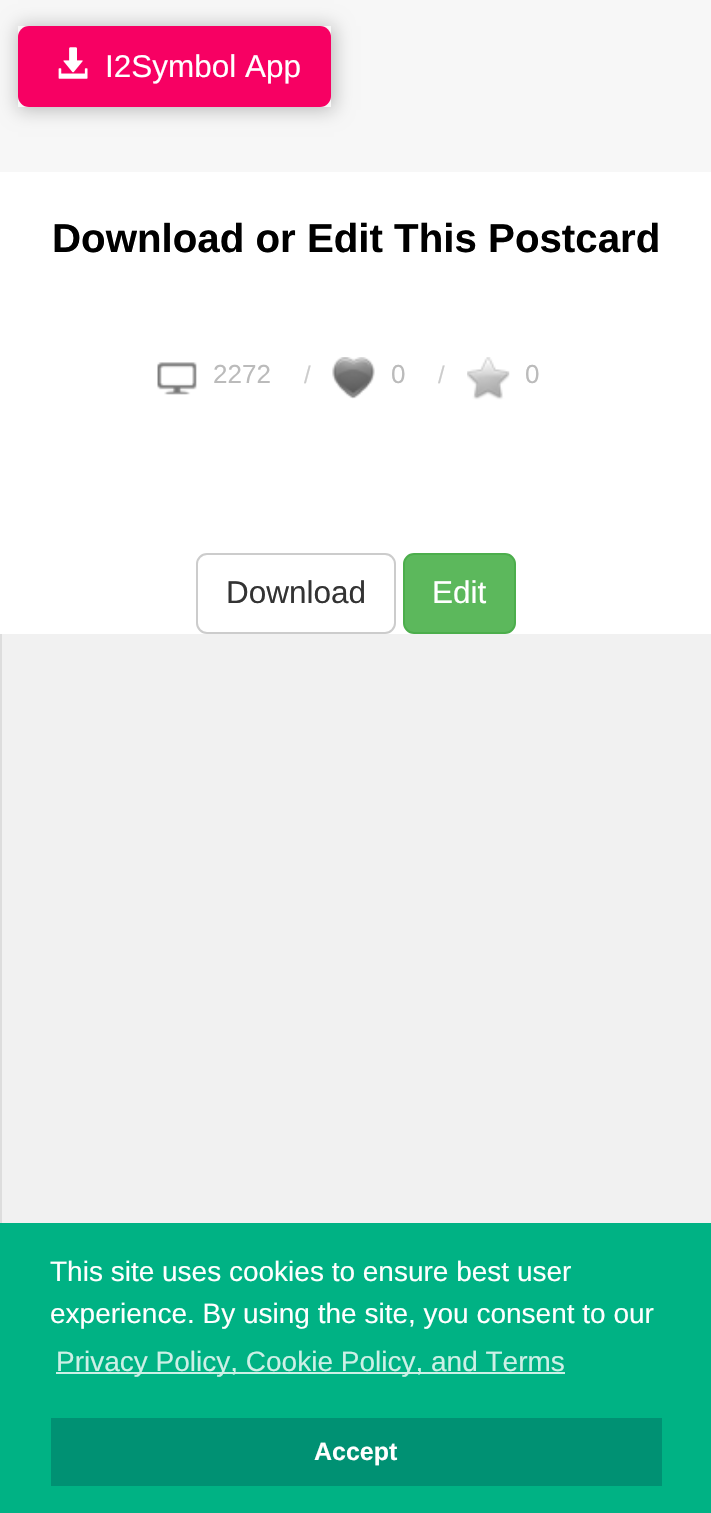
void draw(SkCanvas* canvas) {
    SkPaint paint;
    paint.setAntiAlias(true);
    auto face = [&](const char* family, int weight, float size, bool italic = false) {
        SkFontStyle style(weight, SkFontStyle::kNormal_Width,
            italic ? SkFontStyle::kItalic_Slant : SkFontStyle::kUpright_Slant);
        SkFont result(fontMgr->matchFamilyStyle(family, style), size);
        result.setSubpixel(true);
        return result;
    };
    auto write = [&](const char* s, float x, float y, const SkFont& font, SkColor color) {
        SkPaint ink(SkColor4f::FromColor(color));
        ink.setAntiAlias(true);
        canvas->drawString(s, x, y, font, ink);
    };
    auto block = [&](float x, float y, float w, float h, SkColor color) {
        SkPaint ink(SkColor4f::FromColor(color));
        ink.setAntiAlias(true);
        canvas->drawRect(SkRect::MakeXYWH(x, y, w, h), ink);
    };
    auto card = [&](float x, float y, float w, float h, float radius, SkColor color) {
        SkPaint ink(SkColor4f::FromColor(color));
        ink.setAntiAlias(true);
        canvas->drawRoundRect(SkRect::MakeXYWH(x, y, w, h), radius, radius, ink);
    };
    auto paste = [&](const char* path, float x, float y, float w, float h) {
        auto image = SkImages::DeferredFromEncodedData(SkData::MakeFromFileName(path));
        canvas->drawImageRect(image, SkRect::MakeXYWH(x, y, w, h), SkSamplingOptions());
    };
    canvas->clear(SkColorSetRGB(247, 247, 247));
    canvas->save();
    canvas->clipPath(SkPathBuilder(SkPathFillType::kEvenOdd).moveTo(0, 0).lineTo(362, 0).lineTo(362, 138).lineTo(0, 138).close().moveTo(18, 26).lineTo(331, 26).lineTo(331, 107).lineTo(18, 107).close().detach(), true);
    paint.setColor(SkColorSetARGB(64, 0, 0, 0));
    paint.setMaskFilter(SkMaskFilter::MakeBlur(kNormal_SkBlurStyle, 9));
    canvas->drawRect(SkRect::MakeXYWH(18, 26, 316, 84), paint);
    paint.setMaskFilter(nullptr);
    canvas->restore();
    card(18, 26, 313, 81, 11, SkColorSetRGB(247, 0, 99));
    paste("pic1.png", 58, 47, 30, 32);
    auto kFont1 = face("Liberation Sans", 400, 31.5f);
    write("I2Symbol App", 105, 77, kFont1, SK_ColorWHITE);
    block(0, 172, 711, 462, SK_ColorWHITE);
    auto kFont2 = face("Liberation Sans", 700, 40.25f);
    write("Download or Edit This Postcard", 52, 252, kFont2, SK_ColorBLACK);
    paste("pic2.png", 157, 362, 40, 33);
    auto kFont3 = face("Liberation Sans", 400, 26);
    write("2272", 213, 383, kFont3, SkColorSetRGB(187, 187, 187));
    auto kFont4 = face("Liberation Sans", 400, 24);
    write("/", 304, 383, kFont4, SkColorSetRGB(204, 204, 204));
    paste("pic3.png", 332, 357, 43, 42);
    write("0", 391, 383, kFont3, SkColorSetRGB(187, 187, 187));
    write("/", 438, 383, kFont4, SkColorSetRGB(204, 204, 204));
    paste("pic4.png", 467, 357, 43, 43);
    write("0", 525, 383, kFont3, SkColorSetRGB(187, 187, 187));
    paint.setStyle(SkPaint::kStroke_Style);
    paint.setStrokeWidth(2);
    paint.setColor(SkColorSetRGB(204, 204, 204));
    canvas->drawRoundRect(SkRect::MakeXYWH(197, 554, 198, 79), 10, 10, paint);
    write("Download", 226, 603, kFont1, SkColorSetRGB(51, 51, 51));
    paint.setStyle(SkPaint::kFill_Style);
    paint.setColor(SkColorSetRGB(92, 184, 92));
    canvas->drawRoundRect(SkRect::MakeXYWH(404, 554, 111, 79), 10, 10, paint);
    paint.setStyle(SkPaint::kStroke_Style);
    paint.setColor(SkColorSetRGB(76, 174, 76));
    canvas->drawRoundRect(SkRect::MakeXYWH(404, 554, 111, 79), 10, 10, paint);
    write("Edit", 432, 603, kFont1, SK_ColorWHITE);
    block(2, 634, 709, 589, SkColorSetRGB(241, 241, 241));
    block(0, 634, 2, 589, SkColorSetRGB(221, 221, 221));
    block(0, 1223, 711, 290, SkColorSetRGB(0, 178, 132));
    auto kFont5 = face("Liberation Sans", 400, 28);
    write("This site uses cookies to ensure best user", 50, 1281, kFont5, SK_ColorWHITE);
    write("experience. By using the site, you consent to our", 50, 1323, kFont5, SK_ColorWHITE);
    block(56, 1372, 509, 2, SkColorSetRGB(204, 240, 230));
    write("Privacy Policy, Cookie Policy, and Terms", 56, 1371, kFont5, SkColorSetRGB(204, 240, 230));
    block(51, 1418, 611, 68, SkColorSetRGB(0, 145, 115));
    auto kFont6 = face("Liberation Sans", 700, 25);
    write("Accept", 314, 1460, kFont6, SK_ColorWHITE);
}
